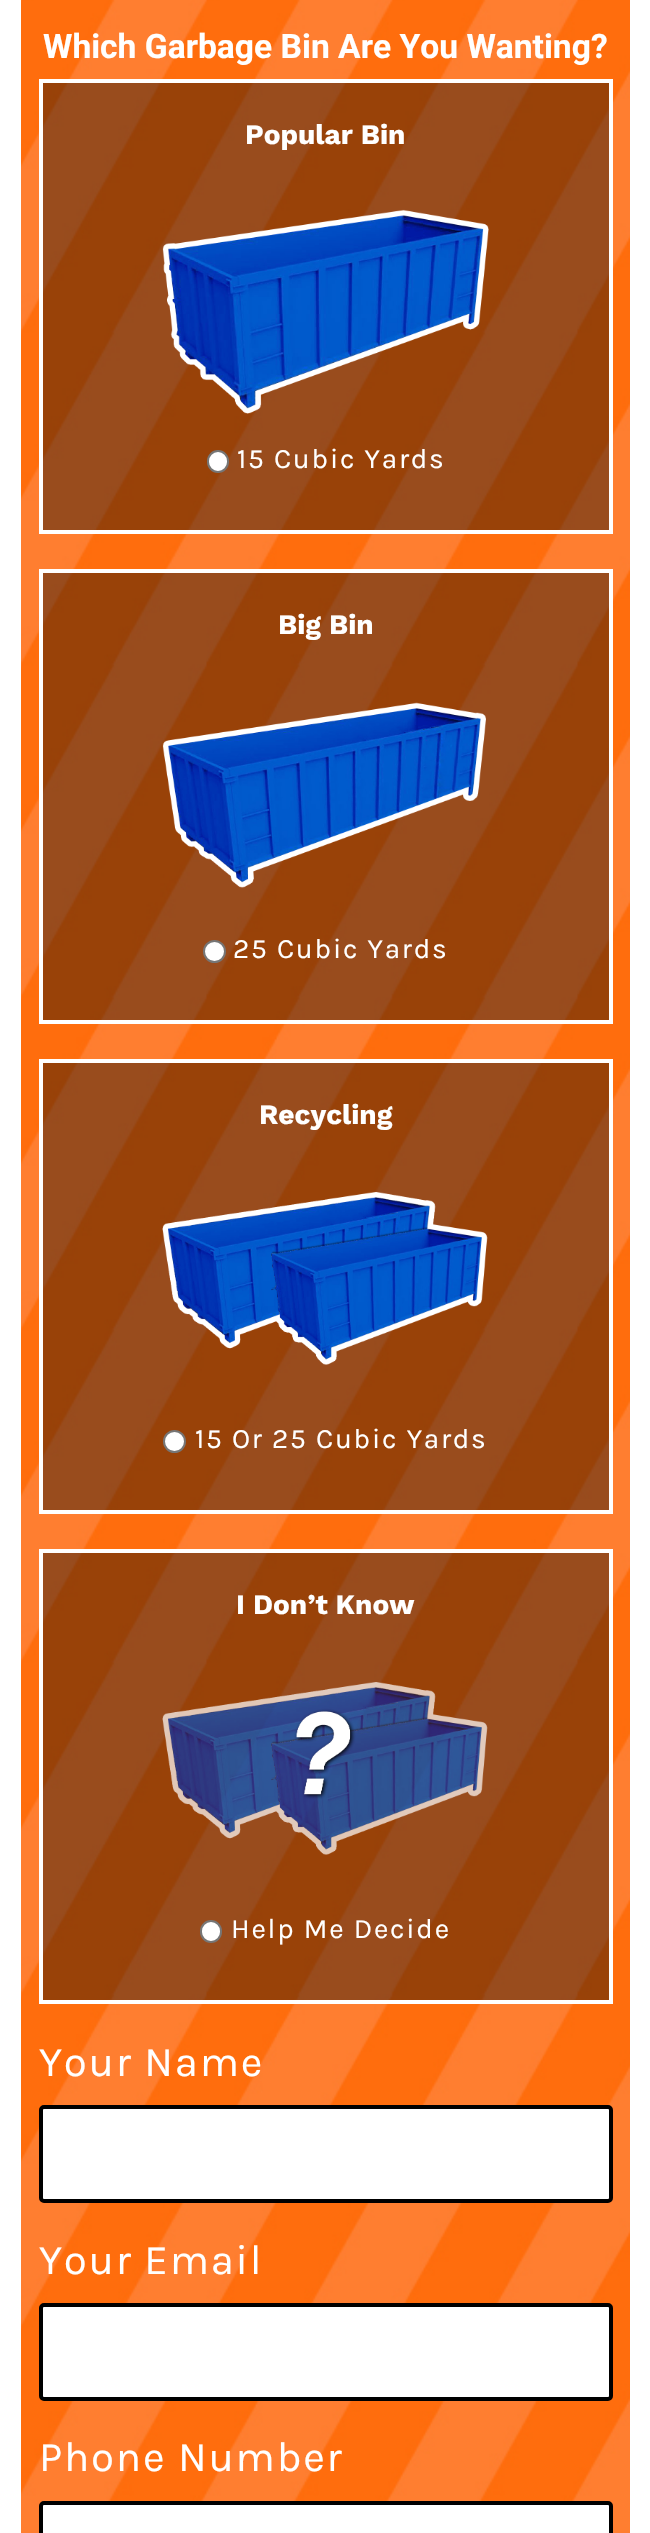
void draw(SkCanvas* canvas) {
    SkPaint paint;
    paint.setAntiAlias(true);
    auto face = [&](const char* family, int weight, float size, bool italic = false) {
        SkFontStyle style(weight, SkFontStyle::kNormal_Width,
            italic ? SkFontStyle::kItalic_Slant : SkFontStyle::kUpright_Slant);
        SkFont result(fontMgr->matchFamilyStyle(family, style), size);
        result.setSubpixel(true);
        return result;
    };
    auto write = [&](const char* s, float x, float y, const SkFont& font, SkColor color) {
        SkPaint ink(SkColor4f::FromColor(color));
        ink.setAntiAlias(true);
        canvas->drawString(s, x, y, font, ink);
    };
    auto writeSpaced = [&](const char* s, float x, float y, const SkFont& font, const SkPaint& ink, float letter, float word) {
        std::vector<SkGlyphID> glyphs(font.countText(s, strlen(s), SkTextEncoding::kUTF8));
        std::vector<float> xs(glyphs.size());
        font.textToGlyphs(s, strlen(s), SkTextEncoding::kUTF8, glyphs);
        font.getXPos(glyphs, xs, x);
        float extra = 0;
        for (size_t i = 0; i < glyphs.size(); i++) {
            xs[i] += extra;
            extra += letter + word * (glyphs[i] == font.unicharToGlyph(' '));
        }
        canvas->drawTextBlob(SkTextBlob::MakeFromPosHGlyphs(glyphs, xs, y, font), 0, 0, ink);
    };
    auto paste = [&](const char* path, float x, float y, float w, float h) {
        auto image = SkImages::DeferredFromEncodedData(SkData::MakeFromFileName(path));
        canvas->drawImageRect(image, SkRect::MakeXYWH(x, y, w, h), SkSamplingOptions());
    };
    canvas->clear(SK_ColorWHITE);
    paste("pic1.png", 21, 0, 609, 2533);
    auto kFont1 = face("Roboto", 700, 33.6f);
    write("Which Garbage Bin Are You Wanting?", 43, 58, kFont1, SK_ColorWHITE);
    paint.setColor(SkColorSetARGB(102, 0, 0, 0));
    canvas->drawRect(SkRect::MakeXYWH(41, 81, 570, 451), paint);
    paint.setStyle(SkPaint::kStroke_Style);
    paint.setStrokeWidth(4);
    paint.setColor(SK_ColorWHITE);
    canvas->drawRect(SkRect::MakeXYWH(41, 81, 570, 451), paint);
    auto kFont2 = face("Work Sans", 700, 28);
    write("Popular Bin", 245, 144, kFont2, SK_ColorWHITE);
    paste("pic2.png", 162, 209, 327, 205);
    paint.setStyle(SkPaint::kFill_Style);
    canvas->drawRoundRect(SkRect::MakeXYWH(208, 451, 20, 21), 10, 10, paint);
    paint.setStyle(SkPaint::kStroke_Style);
    paint.setStrokeWidth(2);
    paint.setColor(SkColorSetRGB(118, 118, 118));
    canvas->drawRoundRect(SkRect::MakeXYWH(208, 451, 20, 21), 10, 10, paint);
    auto kFont3 = face("Karla", 400, 28);
    paint.setStyle(SkPaint::kFill_Style);
    paint.setColor(SK_ColorWHITE);
    writeSpaced("15 Cubic Yards", 237, 468, kFont3, paint, 1.75f, 0);
    paint.setColor(SkColorSetARGB(102, 0, 0, 0));
    canvas->drawRect(SkRect::MakeXYWH(41, 571, 570, 451), paint);
    paint.setStyle(SkPaint::kStroke_Style);
    paint.setStrokeWidth(4);
    paint.setColor(SK_ColorWHITE);
    canvas->drawRect(SkRect::MakeXYWH(41, 571, 570, 451), paint);
    write("Big Bin", 278, 634, kFont2, SK_ColorWHITE);
    paste("pic3.png", 162, 702, 324, 186);
    paint.setStyle(SkPaint::kFill_Style);
    canvas->drawCircle(214.5f, 951.5f, 10.5f, paint);
    paint.setStyle(SkPaint::kStroke_Style);
    paint.setStrokeWidth(2);
    paint.setColor(SkColorSetRGB(118, 118, 118));
    canvas->drawCircle(214.5f, 951.5f, 10.5f, paint);
    paint.setStyle(SkPaint::kFill_Style);
    paint.setColor(SK_ColorWHITE);
    writeSpaced("25 Cubic Yards", 233, 958, kFont3, paint, 1.75f, 0);
    paint.setColor(SkColorSetARGB(102, 0, 0, 0));
    canvas->drawRect(SkRect::MakeXYWH(41, 1061, 570, 451), paint);
    paint.setStyle(SkPaint::kStroke_Style);
    paint.setStrokeWidth(4);
    paint.setColor(SK_ColorWHITE);
    canvas->drawRect(SkRect::MakeXYWH(41, 1061, 570, 451), paint);
    write("Recycling", 259, 1124, kFont2, SK_ColorWHITE);
    paste("pic4.png", 162, 1192, 326, 173);
    paint.setStyle(SkPaint::kFill_Style);
    canvas->drawCircle(174.5f, 1441.5f, 10.5f, paint);
    paint.setStyle(SkPaint::kStroke_Style);
    paint.setStrokeWidth(2);
    paint.setColor(SkColorSetRGB(118, 118, 118));
    canvas->drawCircle(174.5f, 1441.5f, 10.5f, paint);
    paint.setStyle(SkPaint::kFill_Style);
    paint.setColor(SK_ColorWHITE);
    writeSpaced("15 Or 25 Cubic Yards", 195, 1448, kFont3, paint, 1.75f, 0);
    paint.setColor(SkColorSetARGB(102, 0, 0, 0));
    canvas->drawRect(SkRect::MakeXYWH(41, 1551, 570, 451), paint);
    paint.setStyle(SkPaint::kStroke_Style);
    paint.setStrokeWidth(4);
    paint.setColor(SK_ColorWHITE);
    canvas->drawRect(SkRect::MakeXYWH(41, 1551, 570, 451), paint);
    write("I Don’t Know", 236, 1614, kFont2, SK_ColorWHITE);
    paste("pic5.png", 162, 1682, 326, 173);
    paint.setStyle(SkPaint::kFill_Style);
    canvas->drawRoundRect(SkRect::MakeXYWH(201, 1921, 20, 21), 10, 10, paint);
    paint.setStyle(SkPaint::kStroke_Style);
    paint.setStrokeWidth(2);
    paint.setColor(SkColorSetRGB(118, 118, 118));
    canvas->drawRoundRect(SkRect::MakeXYWH(201, 1921, 20, 21), 10, 10, paint);
    paint.setStyle(SkPaint::kFill_Style);
    paint.setColor(SK_ColorWHITE);
    writeSpaced("Help Me Decide", 231, 1938, kFont3, paint, 1.75f, 0);
    auto kFont4 = face("Karla", 400, 42);
    writeSpaced("Your Name", 39, 2076, kFont4, paint, 1.75f, 0);
    canvas->drawRoundRect(SkRect::MakeXYWH(41, 2107, 570, 94), 3, 3, paint);
    paint.setStyle(SkPaint::kStroke_Style);
    paint.setStrokeWidth(4);
    paint.setColor(SK_ColorBLACK);
    canvas->drawRoundRect(SkRect::MakeXYWH(41, 2107, 570, 94), 3, 3, paint);
    paint.setStyle(SkPaint::kFill_Style);
    paint.setColor(SK_ColorWHITE);
    writeSpaced("Your Email", 39, 2274, kFont4, paint, 1.75f, 0);
    canvas->drawRoundRect(SkRect::MakeXYWH(41, 2305, 570, 94), 3, 3, paint);
    paint.setStyle(SkPaint::kStroke_Style);
    paint.setColor(SK_ColorBLACK);
    canvas->drawRoundRect(SkRect::MakeXYWH(41, 2305, 570, 94), 3, 3, paint);
    paint.setStyle(SkPaint::kFill_Style);
    paint.setColor(SK_ColorWHITE);
    writeSpaced("Phone Number", 39, 2471, kFont4, paint, 1.75f, 0);
    canvas->drawRoundRect(SkRect::MakeXYWH(41, 2503, 570, 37), 3, 3, paint);
    paint.setStyle(SkPaint::kStroke_Style);
    paint.setColor(SK_ColorBLACK);
    canvas->drawRoundRect(SkRect::MakeXYWH(41, 2503, 570, 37), 3, 3, paint);
}
